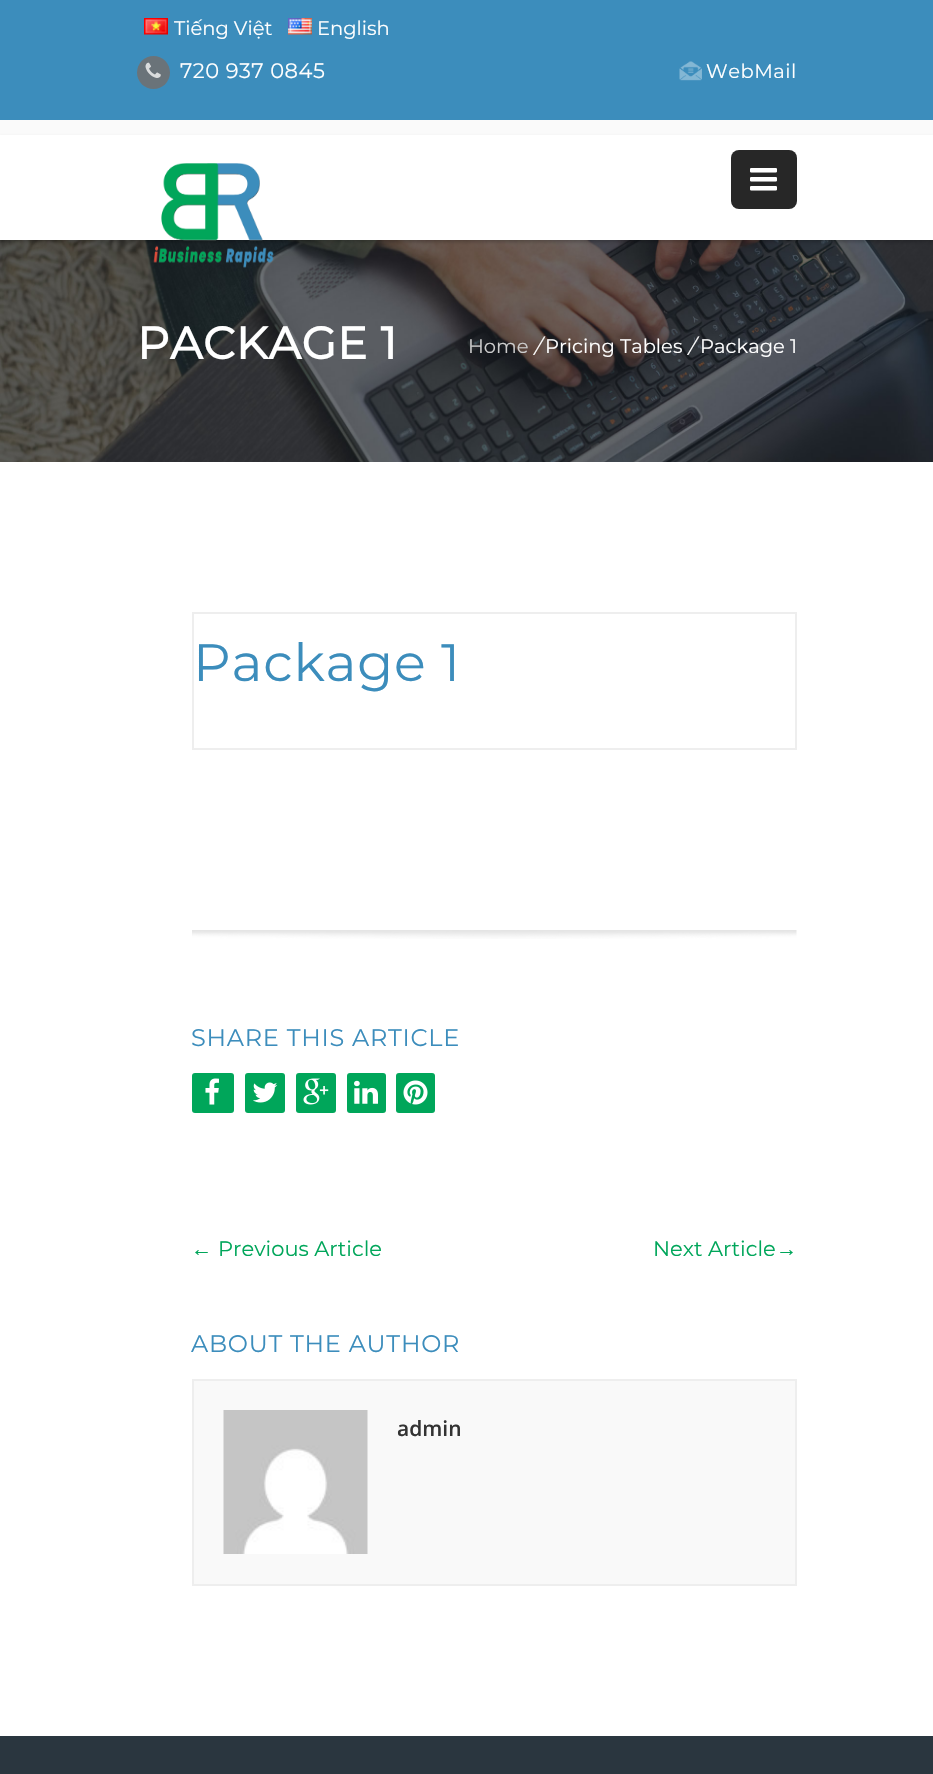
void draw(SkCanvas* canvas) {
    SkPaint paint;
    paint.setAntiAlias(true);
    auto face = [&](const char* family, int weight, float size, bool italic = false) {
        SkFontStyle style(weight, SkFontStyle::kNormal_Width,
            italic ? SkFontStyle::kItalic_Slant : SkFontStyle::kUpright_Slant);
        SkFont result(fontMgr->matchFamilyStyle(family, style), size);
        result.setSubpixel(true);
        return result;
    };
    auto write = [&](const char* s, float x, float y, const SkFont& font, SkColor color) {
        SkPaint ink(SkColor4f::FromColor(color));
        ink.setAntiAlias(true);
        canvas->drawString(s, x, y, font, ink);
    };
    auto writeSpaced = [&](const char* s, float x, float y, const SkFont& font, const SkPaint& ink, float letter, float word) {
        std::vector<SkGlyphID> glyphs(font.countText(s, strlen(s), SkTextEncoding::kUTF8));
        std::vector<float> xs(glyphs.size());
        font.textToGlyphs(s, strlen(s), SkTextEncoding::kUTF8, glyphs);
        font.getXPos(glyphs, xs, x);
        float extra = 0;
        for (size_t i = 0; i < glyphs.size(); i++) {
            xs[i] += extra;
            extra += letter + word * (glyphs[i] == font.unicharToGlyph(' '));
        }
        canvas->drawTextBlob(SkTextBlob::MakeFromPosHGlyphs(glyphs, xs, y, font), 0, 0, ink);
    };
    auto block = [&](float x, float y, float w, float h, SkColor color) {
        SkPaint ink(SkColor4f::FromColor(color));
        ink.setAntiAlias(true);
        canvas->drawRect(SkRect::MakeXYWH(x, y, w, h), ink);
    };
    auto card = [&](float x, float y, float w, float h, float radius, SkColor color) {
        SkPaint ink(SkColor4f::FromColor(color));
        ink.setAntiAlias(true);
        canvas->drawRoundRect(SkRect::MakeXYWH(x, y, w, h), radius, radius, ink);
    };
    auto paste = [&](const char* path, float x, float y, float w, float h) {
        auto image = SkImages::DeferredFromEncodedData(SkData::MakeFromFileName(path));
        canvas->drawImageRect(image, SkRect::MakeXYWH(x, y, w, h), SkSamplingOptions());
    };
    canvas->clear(SkColorSetRGB(250, 250, 250));
    block(0, 0, 933, 120, SkColorSetRGB(60, 141, 188));
    paste("pic1.png", 144, 18, 24, 17);
    auto kFont1 = face("Montserrat", 100, 19.5f);
    write("Tiếng Việt", 174, 35, kFont1, SK_ColorWHITE);
    paste("pic2.png", 288, 18, 24, 17);
    write("English", 317, 35, kFont1, SK_ColorWHITE);
    paint.setColor(SkColorSetRGB(106, 115, 121));
    canvas->drawCircle(153.5f, 72.5f, 16.5f, paint);
    paste("pic3.png", 145, 62, 16, 16);
    auto kFont2 = face("Montserrat", 100, 21);
    paint.setColor(SK_ColorWHITE);
    writeSpaced("720 937 0845", 180, 78, kFont2, paint, 0.5f, 0);
    paste("pic4.png", 679, 61, 23, 20);
    writeSpaced("WebMail", 706, 78, kFont1, paint, 0.5f, 0);
    paste("pic7.png", 0, 240, 933, 222);
    paint.setColor(SkColorSetARGB(51, 0, 0, 0));
    paint.setMaskFilter(SkMaskFilter::MakeBlur(kNormal_SkBlurStyle, 1.5f));
    canvas->drawRect(SkRect::MakeXYWH(0, 137, 933, 105), paint);
    paint.setMaskFilter(nullptr);
    block(0, 135, 933, 105, SK_ColorWHITE);
    paste("pic5.png", 153, 163, 121, 105);
    card(731, 150, 66, 59, 8, SkColorSetRGB(39, 39, 39));
    paste("pic6.png", 750, 168, 27, 23);
    auto kFont3 = face("Montserrat", 700, 45);
    paint.setColor(SK_ColorWHITE);
    writeSpaced("PACKAGE 1", 137, 359, kFont3, paint, 0.75f, 0);
    write("Home", 468, 353, kFont1, SkColorSetRGB(204, 204, 204));
    auto kFont4 = face("Montserrat", 100, 19.5f, true);
    write("/", 534, 353, kFont4, SK_ColorWHITE);
    write("Pricing Tables", 545, 353, kFont1, SK_ColorWHITE);
    write("/", 688, 353, kFont4, SK_ColorWHITE);
    write("Package 1", 700, 353, kFont1, SK_ColorWHITE);
    block(0, 462, 933, 1274, SK_ColorWHITE);
    paint.setStyle(SkPaint::kStroke_Style);
    paint.setStrokeWidth(2);
    paint.setColor(SkColorSetRGB(238, 238, 238));
    canvas->drawRect(SkRect::MakeXYWH(193, 613, 603, 136), paint);
    auto kFont5 = face("Montserrat", 100, 52.5f);
    paint.setStyle(SkPaint::kFill_Style);
    paint.setColor(SkColorSetRGB(60, 141, 188));
    writeSpaced("Package 1", 193, 681, kFont5, paint, 0.75f, 0);
    paste("pic8.png", 192, 930, 605, 9);
    auto kFont6 = face("Montserrat", 100, 24);
    writeSpaced("SHARE THIS ARTICLE", 191, 1046, kFont6, paint, 0.75f, 0);
    card(192, 1073, 42, 40, 3, SkColorSetRGB(0, 166, 90));
    paste("pic9.png", 205, 1078, 14, 27);
    card(245, 1073, 40, 40, 3, SkColorSetRGB(0, 166, 90));
    paste("pic10.png", 253, 1082, 25, 21);
    card(296, 1073, 40, 40, 3, SkColorSetRGB(0, 166, 90));
    paste("pic11.png", 303, 1078, 26, 27);
    card(347, 1073, 39, 40, 3, SkColorSetRGB(0, 166, 90));
    paste("pic12.png", 354, 1080, 24, 24);
    card(396, 1073, 39, 40, 3, SkColorSetRGB(0, 166, 90));
    paste("pic13.png", 403, 1080, 25, 25);
    auto kFont7 = face("Liberation Serif", 400, 21);
    write("←", 191, 1256, kFont7, SkColorSetRGB(0, 166, 90));
    write("Previous Article", 218, 1256, kFont2, SkColorSetRGB(0, 166, 90));
    write("Next Article", 653, 1256, kFont2, SkColorSetRGB(0, 166, 90));
    write("→", 776, 1256, kFont7, SkColorSetRGB(0, 166, 90));
    writeSpaced("ABOUT THE AUTHOR", 191, 1352, kFont6, paint, 0.75f, 0);
    paint.setColor(SkColorSetRGB(249, 249, 249));
    canvas->drawRect(SkRect::MakeXYWH(193, 1380, 603, 205), paint);
    paint.setStyle(SkPaint::kStroke_Style);
    paint.setColor(SkColorSetRGB(238, 238, 238));
    canvas->drawRect(SkRect::MakeXYWH(193, 1380, 603, 205), paint);
    paste("pic14.png", 223, 1410, 145, 144);
    auto kFont8 = face("Open Sans", 600, 21);
    write("admin", 397, 1436, kFont8, SkColorSetRGB(51, 51, 51));
    block(0, 1736, 933, 38, SkColorSetRGB(42, 54, 63));
}
